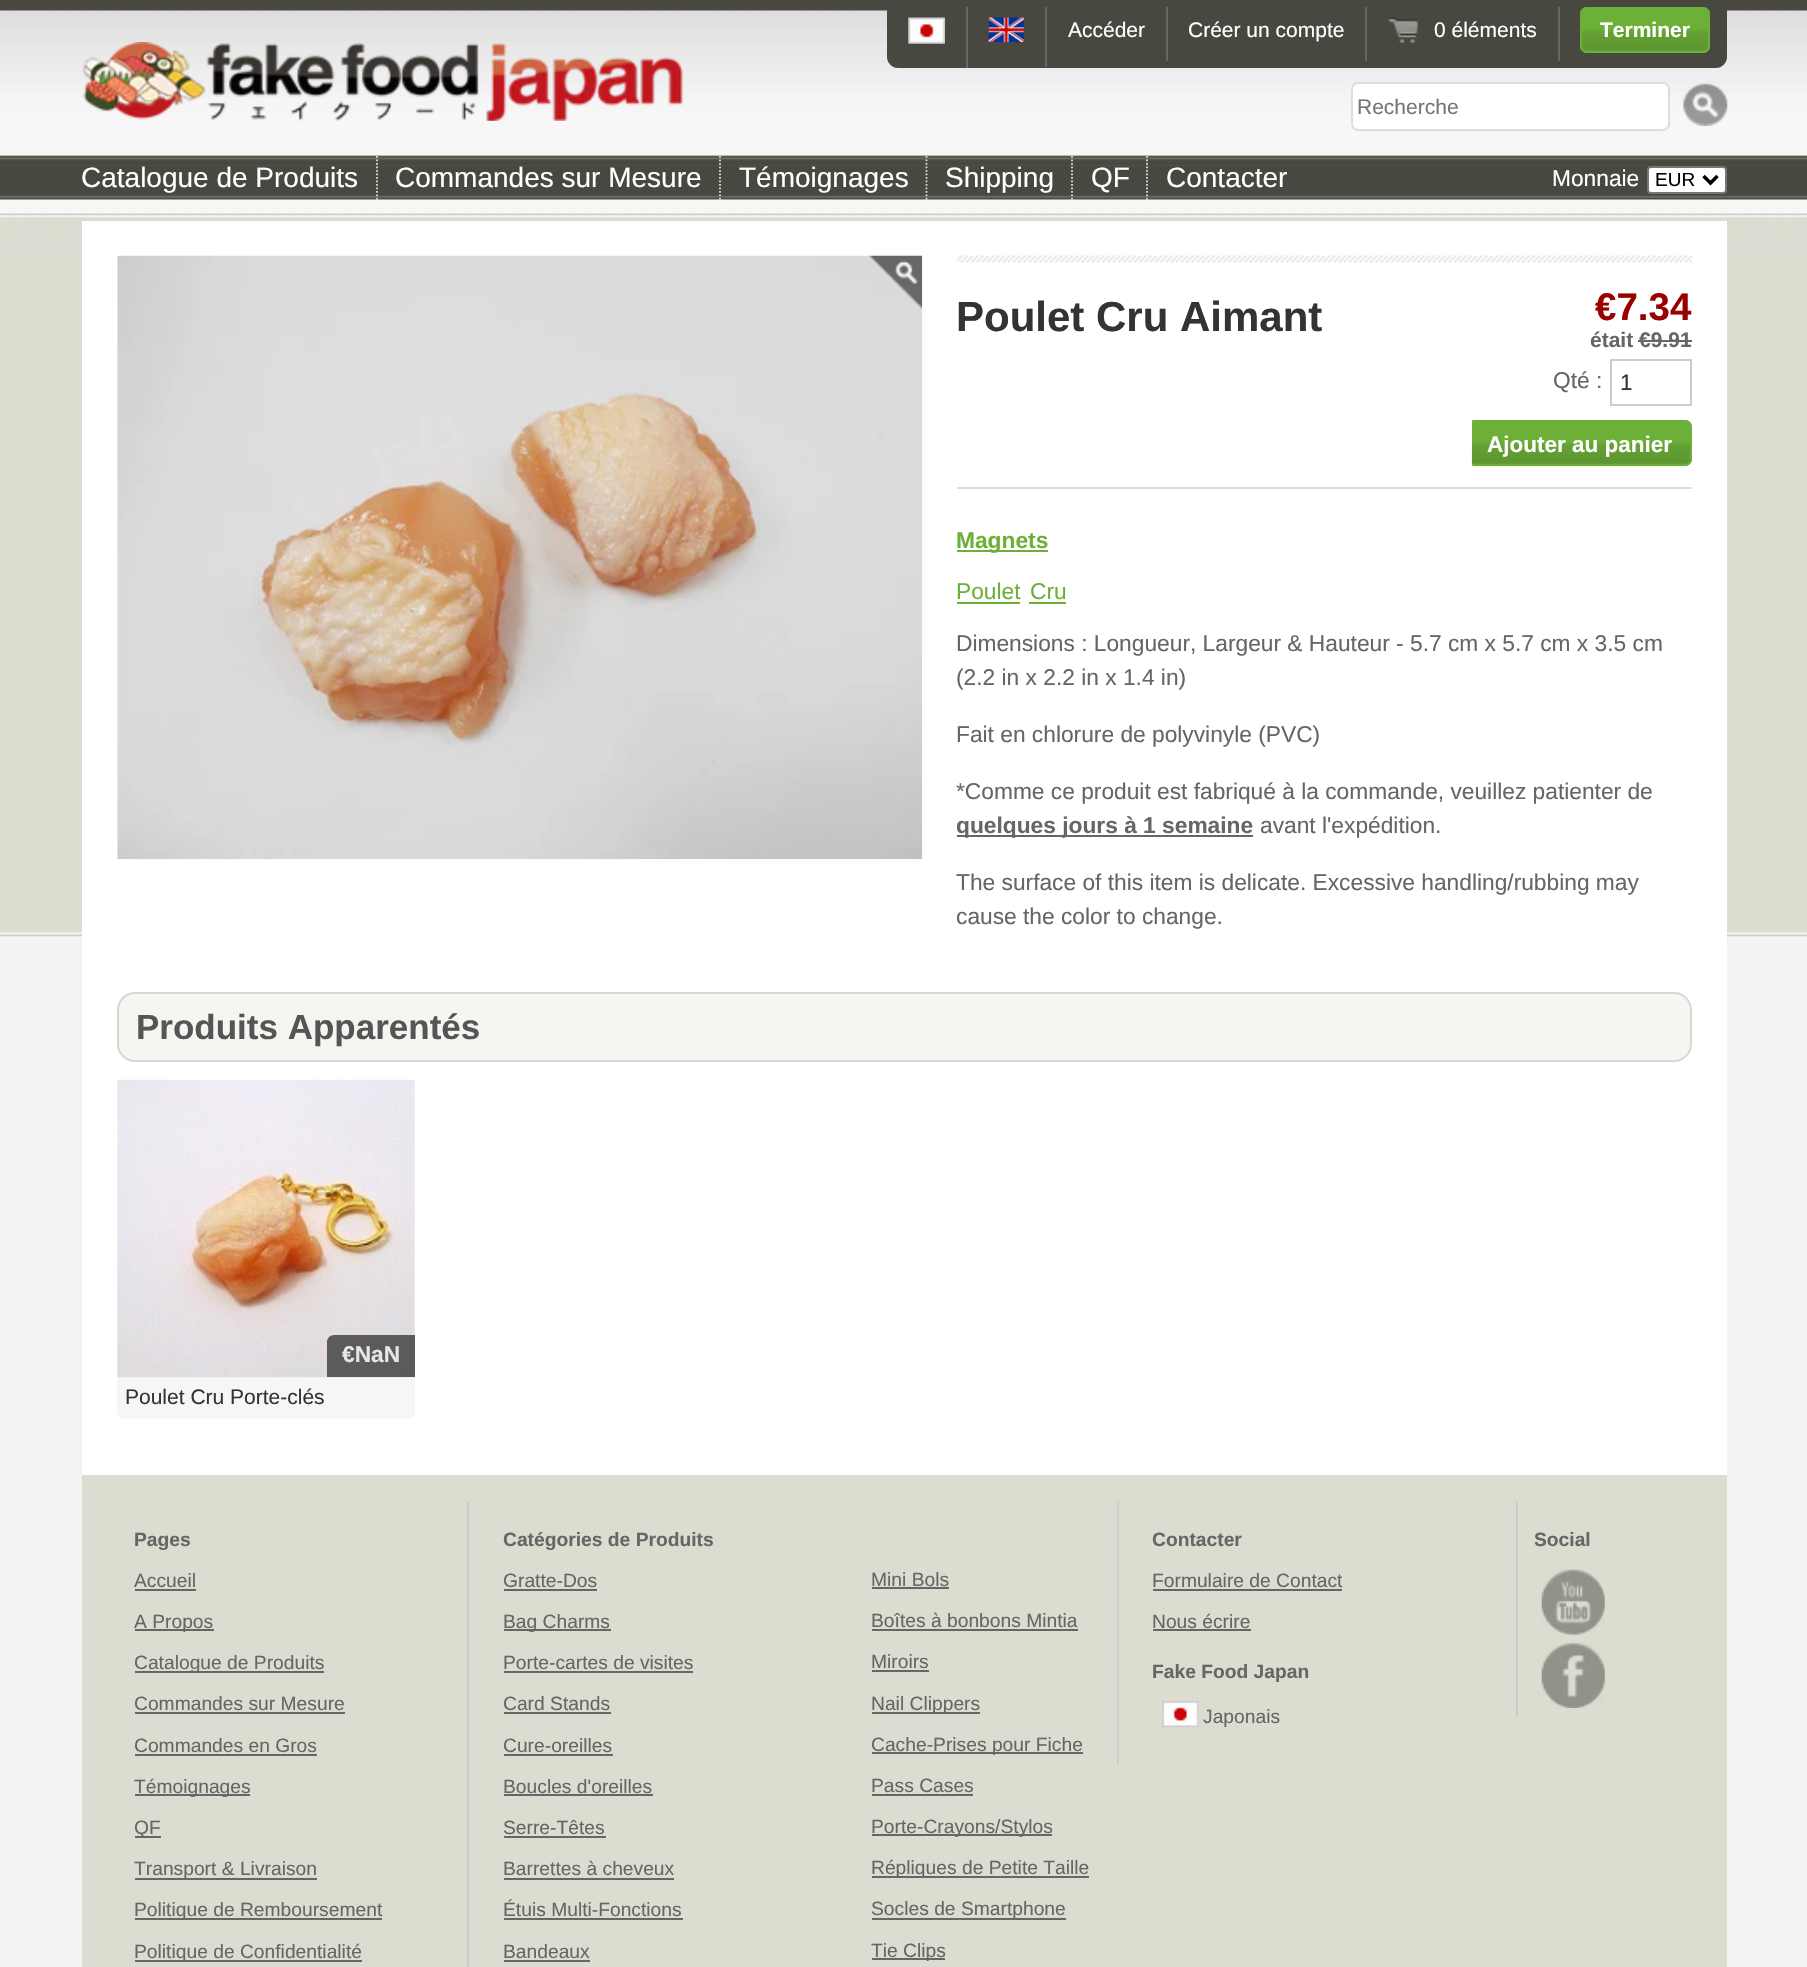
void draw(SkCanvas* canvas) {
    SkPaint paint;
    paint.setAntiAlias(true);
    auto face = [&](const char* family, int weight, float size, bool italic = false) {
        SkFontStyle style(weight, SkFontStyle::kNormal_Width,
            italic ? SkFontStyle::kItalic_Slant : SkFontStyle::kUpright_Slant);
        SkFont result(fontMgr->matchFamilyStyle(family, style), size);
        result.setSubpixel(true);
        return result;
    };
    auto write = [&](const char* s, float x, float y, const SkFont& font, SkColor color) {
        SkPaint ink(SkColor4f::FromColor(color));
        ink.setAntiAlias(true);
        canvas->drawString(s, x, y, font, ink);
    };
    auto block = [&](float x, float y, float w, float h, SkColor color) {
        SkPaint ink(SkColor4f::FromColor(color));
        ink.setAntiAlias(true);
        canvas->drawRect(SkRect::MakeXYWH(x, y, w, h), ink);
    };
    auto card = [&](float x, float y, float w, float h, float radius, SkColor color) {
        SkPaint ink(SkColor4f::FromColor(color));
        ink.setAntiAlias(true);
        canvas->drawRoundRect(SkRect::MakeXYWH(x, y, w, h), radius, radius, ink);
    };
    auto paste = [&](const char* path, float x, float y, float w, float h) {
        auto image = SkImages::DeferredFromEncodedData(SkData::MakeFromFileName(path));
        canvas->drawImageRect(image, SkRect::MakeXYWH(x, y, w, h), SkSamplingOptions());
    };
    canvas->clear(SkColorSetRGB(243, 243, 243));
    paste("pic1.png", 0, 7, 1807, 930);
    block(0, 0, 1807, 7, SkColorSetRGB(72, 72, 64));
    paint.setColor(SkColorSetRGB(72, 72, 64));
    canvas->drawPath(SkPathBuilder().moveTo(887, 7).lineTo(1727, 7).lineTo(1727, 57).cubicTo(1727, 63, 1722, 68, 1716, 68).lineTo(898, 68).cubicTo(892, 68, 887, 63, 887, 57).close().detach(), paint);
    block(966, 7, 2, 61, SkColorSetRGB(102, 102, 102));
    paste("pic2.png", 908, 17, 37, 27);
    block(1045, 7, 2, 60, SkColorSetRGB(102, 102, 102));
    paste("pic3.png", 988, 17, 36, 25);
    block(1166, 7, 2, 54, SkColorSetRGB(102, 102, 102));
    auto kFont1 = face("Liberation Sans", 400, 21);
    write("Accéder", 1068, 37, kFont1, SK_ColorWHITE);
    block(1365, 7, 2, 54, SkColorSetRGB(102, 102, 102));
    write("Créer un compte", 1188, 37, kFont1, SK_ColorWHITE);
    block(1558, 7, 2, 54, SkColorSetRGB(102, 102, 102));
    paste("pic4.png", 1387, 17, 31, 27);
    write("0 éléments", 1434, 37, kFont1, SK_ColorWHITE);
    card(1580, 7, 130, 46, 7, SkColorSetRGB(109, 176, 56));
    paste("pic5.png", 1580, 29, 130, 22);
    paint.setStyle(SkPaint::kStroke_Style);
    paint.setStrokeWidth(2);
    paint.setColor(SkColorSetRGB(109, 176, 56));
    canvas->drawRoundRect(SkRect::MakeXYWH(1581, 8, 128, 44), 6, 6, paint);
    auto kFont2 = face("Liberation Sans", 700, 21);
    write("Terminer", 1600, 37, kFont2, SK_ColorWHITE);
    paste("pic6.png", 82, 42, 601, 79);
    paint.setStyle(SkPaint::kFill_Style);
    paint.setColor(SK_ColorWHITE);
    canvas->drawRoundRect(SkRect::MakeXYWH(1352, 83, 317, 47), 6, 6, paint);
    paint.setStyle(SkPaint::kStroke_Style);
    paint.setColor(SkColorSetRGB(221, 221, 221));
    canvas->drawRoundRect(SkRect::MakeXYWH(1352, 83, 317, 47), 6, 6, paint);
    write("Recherche", 1357, 114, kFont1, SkColorSetRGB(117, 117, 117));
    paste("pic7.png", 1683, 83, 45, 43);
    paint.setStrokeWidth(1.8f);
    paint.setPathEffect(SkDashPathEffect::Make({{1.75f, 1.75f}}, 0));
    canvas->drawPath(SkPathBuilder().moveTo(377, 156).lineTo(377, 201).detach(), paint);
    paint.setPathEffect(nullptr);
    auto kFont3 = face("Liberation Sans", 400, 28);
    write("Catalogue de Produits", 81, 187, kFont3, SK_ColorWHITE);
    paint.setPathEffect(SkDashPathEffect::Make({{1.75f, 1.75f}}, 0));
    canvas->drawPath(SkPathBuilder().moveTo(720, 156).lineTo(720, 201).detach(), paint);
    paint.setPathEffect(nullptr);
    write("Commandes sur Mesure", 395, 187, kFont3, SK_ColorWHITE);
    paint.setPathEffect(SkDashPathEffect::Make({{1.75f, 1.75f}}, 0));
    canvas->drawPath(SkPathBuilder().moveTo(926.5f, 156).lineTo(926.5f, 201).detach(), paint);
    paint.setPathEffect(nullptr);
    write("Témoignages", 739, 187, kFont3, SK_ColorWHITE);
    paint.setPathEffect(SkDashPathEffect::Make({{1.75f, 1.75f}}, 0));
    canvas->drawPath(SkPathBuilder().moveTo(1072, 156).lineTo(1072, 201).detach(), paint);
    paint.setPathEffect(nullptr);
    write("Shipping", 945, 187, kFont3, SK_ColorWHITE);
    paint.setPathEffect(SkDashPathEffect::Make({{1.75f, 1.75f}}, 0));
    canvas->drawPath(SkPathBuilder().moveTo(1147, 156).lineTo(1147, 201).detach(), paint);
    paint.setPathEffect(nullptr);
    write("QF", 1091, 187, kFont3, SK_ColorWHITE);
    write("Contacter", 1166, 187, kFont3, SK_ColorWHITE);
    auto kFont4 = face("Liberation Sans", 400, 22.75f);
    write("Monnaie", 1552, 186, kFont4, SK_ColorWHITE);
    paint.setStyle(SkPaint::kFill_Style);
    paint.setColor(SK_ColorWHITE);
    canvas->drawRoundRect(SkRect::MakeXYWH(1648, 167, 78, 26), 3, 3, paint);
    paint.setStyle(SkPaint::kStroke_Style);
    paint.setStrokeWidth(2);
    paint.setColor(SkColorSetRGB(118, 118, 118));
    canvas->drawRoundRect(SkRect::MakeXYWH(1648, 167, 78, 26), 3, 3, paint);
    paint.setStrokeWidth(3.5f);
    paint.setColor(SK_ColorBLACK);
    canvas->drawPath(SkPathBuilder().moveTo(1703.5f, 176).lineTo(1710.5f, 183).lineTo(1717.5f, 176).detach(), paint);
    auto kFont5 = face("Liberation Sans", 400, 19);
    write("EUR", 1655, 186, kFont5, SK_ColorBLACK);
    block(82, 221, 1645, 1254, SK_ColorWHITE);
    paste("pic8.png", 117, 255, 806, 605);
    paste("pic9.png", 869, 255, 54, 54);
    paste("pic10.png", 957, 255, 735, 8);
    block(957, 487, 735, 2, SkColorSetRGB(221, 221, 221));
    auto kFont6 = face("Liberation Sans", 700, 42);
    write("Poulet Cru Aimant", 956, 331, kFont6, SkColorSetRGB(51, 51, 51));
    auto kFont7 = face("Liberation Sans", 700, 38.5f);
    write("€7.34", 1595, 320, kFont7, SkColorSetRGB(153, 0, 0));
    write("était €9.91", 1590, 347, kFont2, SkColorSetRGB(102, 102, 102));
    block(1638, 340, 54, 2, SkColorSetRGB(102, 102, 102));
    write("Qté :", 1553, 388, kFont4, SkColorSetRGB(102, 102, 102));
    paint.setStrokeWidth(2);
    paint.setColor(SkColorSetRGB(204, 204, 204));
    canvas->drawRect(SkRect::MakeXYWH(1611, 360, 80, 45), paint);
    auto kFont8 = face("Liberation Sans", 400, 22.5f);
    write("1", 1620, 390, kFont8, SkColorSetRGB(51, 51, 51));
    canvas->save();
    canvas->clipRect(SkRect::MakeXYWH(1472, 284, 220, 203));
    card(1468, 420, 224, 46, 7, SkColorSetRGB(109, 176, 56));
    canvas->restore();
    paste("pic11.png", 1471, 442, 221, 22);
    canvas->save();
    canvas->clipRect(SkRect::MakeXYWH(1472, 284, 220, 203));
    paint.setColor(SkColorSetRGB(109, 176, 56));
    canvas->drawRoundRect(SkRect::MakeXYWH(1469, 421, 222, 44), 6, 6, paint);
    canvas->restore();
    auto kFont9 = face("Liberation Sans", 700, 22.5f);
    write("Ajouter au panier", 1487, 452, kFont9, SK_ColorWHITE);
    block(957, 550, 91, 2, SkColorSetRGB(109, 176, 56));
    auto kFont10 = face("Liberation Sans", 700, 22.75f);
    write("Magnets", 956, 548, kFont10, SkColorSetRGB(109, 176, 56));
    write("Poulet", 956, 599, kFont4, SkColorSetRGB(109, 176, 56));
    block(957, 602, 63, 2, SkColorSetRGB(109, 176, 56));
    write("Cru", 1030, 599, kFont4, SkColorSetRGB(109, 176, 56));
    block(1029, 602, 37, 2, SkColorSetRGB(109, 176, 56));
    write("Dimensions : Longueur, Largeur & Hauteur - 5.7 cm x 5.7 cm x 3.5 cm", 956, 651, kFont4, SkColorSetRGB(102, 102, 102));
    write("(2.2 in x 2.2 in x 1.4 in)", 956, 685, kFont4, SkColorSetRGB(102, 102, 102));
    write("Fait en chlorure de polyvinyle (PVC)", 956, 742, kFont4, SkColorSetRGB(102, 102, 102));
    write("*Comme ce produit est fabriqué à la commande, veuillez patienter de", 956, 799, kFont4, SkColorSetRGB(102, 102, 102));
    block(957, 835, 296, 2, SkColorSetRGB(102, 102, 102));
    write("quelques jours à 1 semaine", 956, 833, kFont10, SkColorSetRGB(102, 102, 102));
    write("avant l'expédition.", 1260, 833, kFont4, SkColorSetRGB(102, 102, 102));
    write("The surface of this item is delicate. Excessive handling/rubbing may", 956, 890, kFont4, SkColorSetRGB(102, 102, 102));
    write("cause the color to change.", 956, 924, kFont4, SkColorSetRGB(102, 102, 102));
    paint.setStyle(SkPaint::kFill_Style);
    paint.setColor(SkColorSetRGB(245, 245, 241));
    canvas->drawRoundRect(SkRect::MakeXYWH(118, 993, 1573, 68), 17, 17, paint);
    paint.setStyle(SkPaint::kStroke_Style);
    paint.setColor(SkColorSetRGB(215, 215, 212));
    canvas->drawRoundRect(SkRect::MakeXYWH(118, 993, 1573, 68), 17, 17, paint);
    auto kFont11 = face("Liberation Sans", 700, 35);
    write("Produits Apparentés", 136, 1039, kFont11, SkColorSetRGB(85, 85, 85));
    paint.setStyle(SkPaint::kFill_Style);
    paint.setColor(SkColorSetRGB(246, 246, 246));
    canvas->drawPath(SkPathBuilder().moveTo(117, 1377).lineTo(415, 1377).lineTo(415, 1412).cubicTo(415, 1416, 412, 1419, 408, 1419).lineTo(124, 1419).cubicTo(120, 1419, 117, 1416, 117, 1412).close().detach(), paint);
    paste("pic12.png", 117, 1079, 298, 299);
    paint.setColor(SkColorSetARGB(217, 68, 68, 68));
    canvas->drawPath(SkPathBuilder().moveTo(334, 1335).lineTo(415, 1335).lineTo(415, 1377).lineTo(327, 1377).lineTo(327, 1342).cubicTo(327, 1338, 330, 1335, 334, 1335).close().detach(), paint);
    write("€NaN", 342, 1362, kFont10, SkColorSetRGB(230, 230, 230));
    write("Poulet Cru Porte-clés", 125, 1404, kFont1, SkColorSetRGB(51, 51, 51));
    block(82, 1475, 1645, 492, SkColorSetRGB(220, 220, 208));
    auto kFont12 = face("Liberation Sans", 700, 19.25f);
    write("Pages", 134, 1546, kFont12, SkColorSetRGB(102, 102, 102));
    auto kFont13 = face("Liberation Sans", 400, 19.25f);
    write("Accueil", 134, 1587, kFont13, SkColorSetRGB(102, 102, 102));
    block(135, 1589, 61, 2, SkColorSetRGB(102, 102, 102));
    block(135, 1629, 79, 2, SkColorSetRGB(102, 102, 102));
    write("A Propos", 134, 1628, kFont13, SkColorSetRGB(102, 102, 102));
    block(135, 1671, 189, 2, SkColorSetRGB(102, 102, 102));
    write("Catalogue de Produits", 134, 1669, kFont13, SkColorSetRGB(102, 102, 102));
    write("Commandes sur Mesure", 134, 1710, kFont13, SkColorSetRGB(102, 102, 102));
    block(135, 1712, 210, 2, SkColorSetRGB(102, 102, 102));
    write("Commandes en Gros", 134, 1752, kFont13, SkColorSetRGB(102, 102, 102));
    block(135, 1754, 182, 2, SkColorSetRGB(102, 102, 102));
    block(135, 1794, 115, 2, SkColorSetRGB(102, 102, 102));
    write("Témoignages", 134, 1793, kFont13, SkColorSetRGB(102, 102, 102));
    block(135, 1836, 26, 2, SkColorSetRGB(102, 102, 102));
    write("QF", 134, 1834, kFont13, SkColorSetRGB(102, 102, 102));
    block(135, 1878, 182, 2, SkColorSetRGB(102, 102, 102));
    write("Transport & Livraison", 134, 1875, kFont13, SkColorSetRGB(102, 102, 102));
    block(135, 1918, 247, 2, SkColorSetRGB(102, 102, 102));
    write("Politique de Remboursement", 134, 1916, kFont13, SkColorSetRGB(102, 102, 102));
    block(135, 1960, 227, 2, SkColorSetRGB(102, 102, 102));
    write("Politique de Confidentialité", 134, 1958, kFont13, SkColorSetRGB(102, 102, 102));
    block(467, 1502, 2, 465, SkColorSetRGB(204, 204, 204));
    write("Catégories de Produits", 503, 1546, kFont12, SkColorSetRGB(102, 102, 102));
    write("Gratte-Dos", 503, 1587, kFont13, SkColorSetRGB(102, 102, 102));
    block(504, 1589, 93, 2, SkColorSetRGB(102, 102, 102));
    block(504, 1629, 107, 2, SkColorSetRGB(102, 102, 102));
    write("Bag Charms", 503, 1628, kFont13, SkColorSetRGB(102, 102, 102));
    write("Porte-cartes de visites", 503, 1669, kFont13, SkColorSetRGB(102, 102, 102));
    block(504, 1671, 189, 2, SkColorSetRGB(102, 102, 102));
    write("Card Stands", 503, 1710, kFont13, SkColorSetRGB(102, 102, 102));
    block(504, 1712, 107, 2, SkColorSetRGB(102, 102, 102));
    write("Cure-oreilles", 503, 1752, kFont13, SkColorSetRGB(102, 102, 102));
    block(504, 1754, 109, 2, SkColorSetRGB(102, 102, 102));
    write("Boucles d'oreilles", 503, 1793, kFont13, SkColorSetRGB(102, 102, 102));
    block(504, 1794, 149, 2, SkColorSetRGB(102, 102, 102));
    write("Serre-Têtes", 503, 1834, kFont13, SkColorSetRGB(102, 102, 102));
    block(504, 1836, 102, 2, SkColorSetRGB(102, 102, 102));
    write("Barrettes à cheveux", 503, 1875, kFont13, SkColorSetRGB(102, 102, 102));
    block(504, 1878, 170, 2, SkColorSetRGB(102, 102, 102));
    write("Étuis Multi-Fonctions", 503, 1916, kFont13, SkColorSetRGB(102, 102, 102));
    block(504, 1918, 179, 2, SkColorSetRGB(102, 102, 102));
    write("Bandeaux", 503, 1958, kFont13, SkColorSetRGB(102, 102, 102));
    block(504, 1960, 86, 2, SkColorSetRGB(102, 102, 102));
    block(1117, 1502, 2, 262, SkColorSetRGB(204, 204, 204));
    write("Contacter", 1152, 1546, kFont12, SkColorSetRGB(102, 102, 102));
    write("Formulaire de Contact", 1152, 1587, kFont13, SkColorSetRGB(102, 102, 102));
    block(1153, 1589, 189, 2, SkColorSetRGB(102, 102, 102));
    write("Nous écrire", 1152, 1628, kFont13, SkColorSetRGB(102, 102, 102));
    block(1153, 1629, 98, 2, SkColorSetRGB(102, 102, 102));
    write("Fake Food Japan", 1152, 1678, kFont12, SkColorSetRGB(102, 102, 102));
    paste("pic13.png", 1162, 1701, 37, 27);
    write("Japonais", 1203, 1723, kFont13, SkColorSetRGB(102, 102, 102));
    block(1516, 1502, 2, 215, SkColorSetRGB(204, 204, 204));
    write("Social", 1534, 1546, kFont12, SkColorSetRGB(102, 102, 102));
    paste("pic14.png", 1541, 1569, 64, 66);
    paste("pic15.png", 1541, 1643, 64, 65);
    write("Mini Bols", 871, 1586, kFont13, SkColorSetRGB(102, 102, 102));
    block(872, 1587, 77, 2, SkColorSetRGB(102, 102, 102));
    write("Boîtes à bonbons Mintia", 871, 1627, kFont13, SkColorSetRGB(102, 102, 102));
    block(872, 1629, 206, 2, SkColorSetRGB(102, 102, 102));
    write("Miroirs", 871, 1668, kFont13, SkColorSetRGB(102, 102, 102));
    block(872, 1670, 57, 2, SkColorSetRGB(102, 102, 102));
    block(872, 1712, 108, 2, SkColorSetRGB(102, 102, 102));
    write("Nail Clippers", 871, 1710, kFont13, SkColorSetRGB(102, 102, 102));
    block(872, 1752, 211, 2, SkColorSetRGB(102, 102, 102));
    write("Cache-Prises pour Fiche", 871, 1751, kFont13, SkColorSetRGB(102, 102, 102));
    write("Pass Cases", 871, 1792, kFont13, SkColorSetRGB(102, 102, 102));
    block(872, 1794, 101, 2, SkColorSetRGB(102, 102, 102));
    block(872, 1834, 180, 2, SkColorSetRGB(102, 102, 102));
    write("Porte-Crayons/Stylos", 871, 1833, kFont13, SkColorSetRGB(102, 102, 102));
    block(872, 1876, 217, 2, SkColorSetRGB(102, 102, 102));
    write("Répliques de Petite Taille", 871, 1874, kFont13, SkColorSetRGB(102, 102, 102));
    block(872, 1918, 194, 2, SkColorSetRGB(102, 102, 102));
    write("Socles de Smartphone", 871, 1915, kFont13, SkColorSetRGB(102, 102, 102));
    block(872, 1958, 73, 2, SkColorSetRGB(102, 102, 102));
    write("Tie Clips", 871, 1957, kFont13, SkColorSetRGB(102, 102, 102));
}
